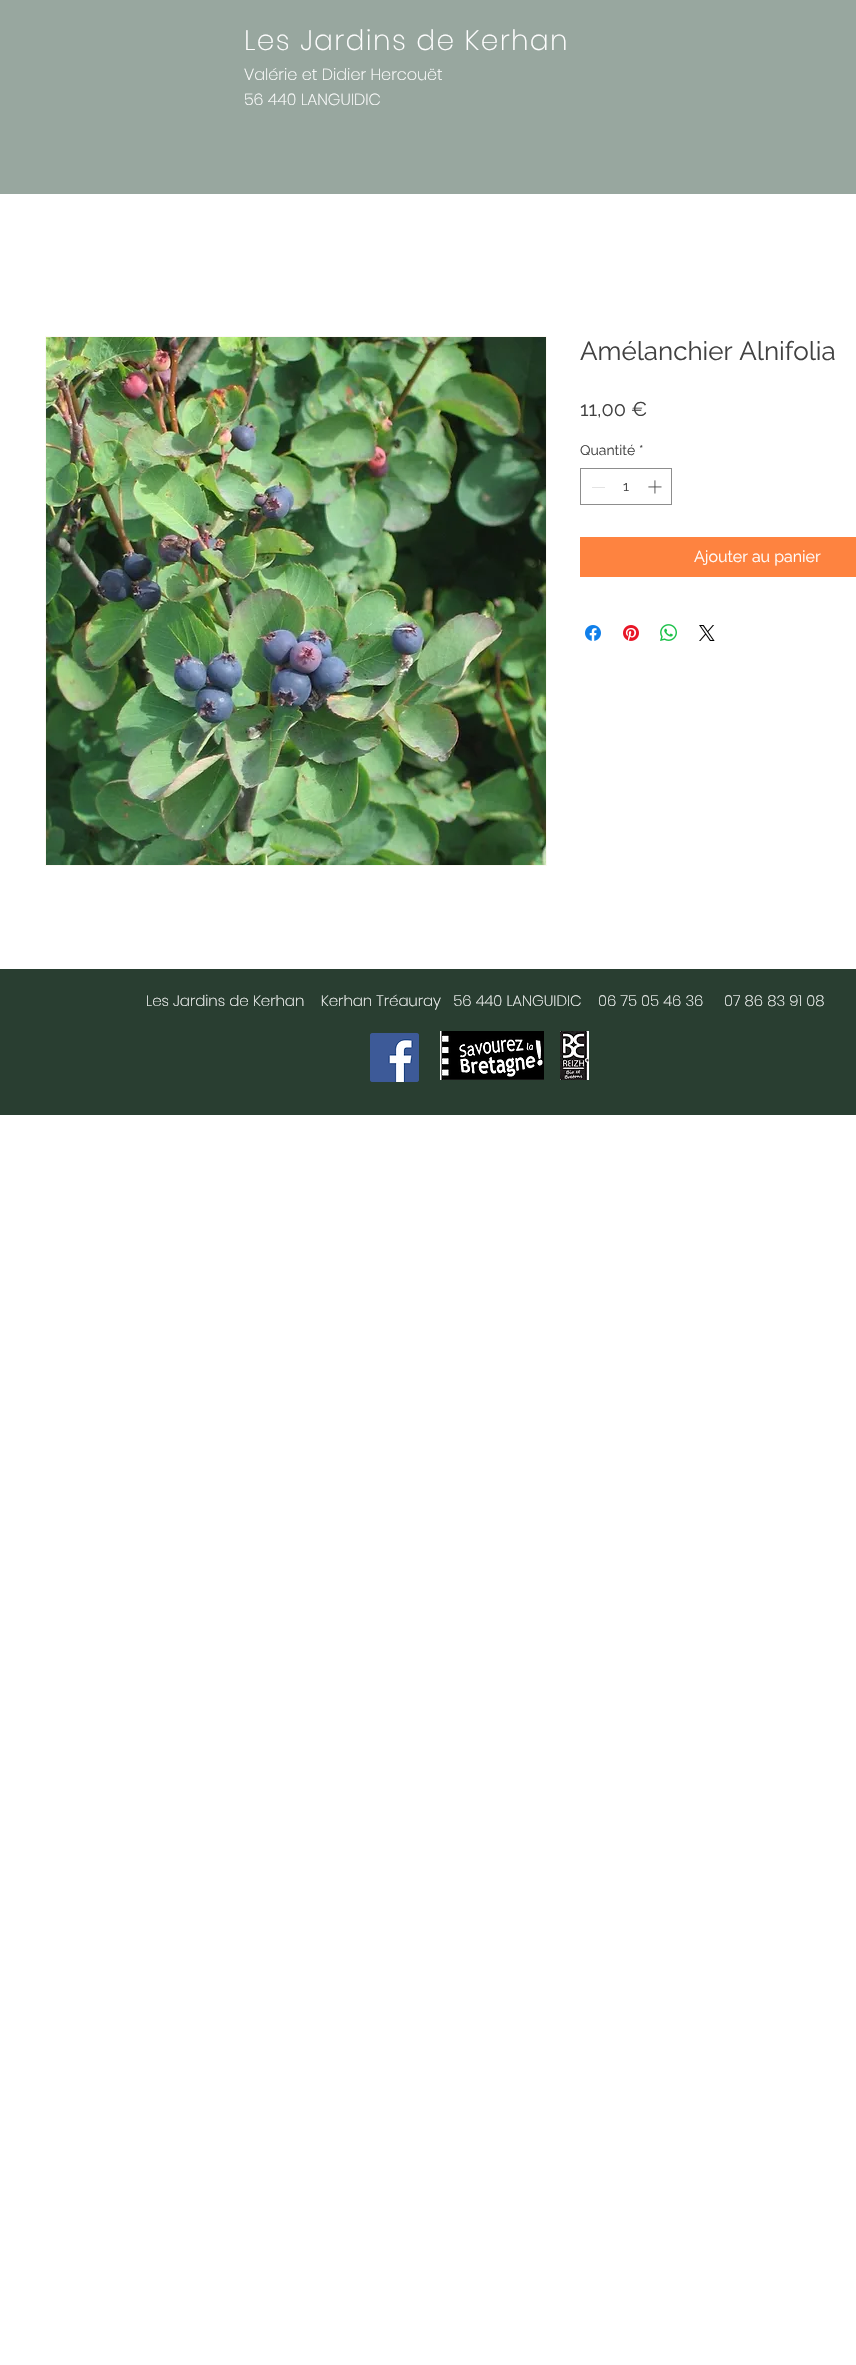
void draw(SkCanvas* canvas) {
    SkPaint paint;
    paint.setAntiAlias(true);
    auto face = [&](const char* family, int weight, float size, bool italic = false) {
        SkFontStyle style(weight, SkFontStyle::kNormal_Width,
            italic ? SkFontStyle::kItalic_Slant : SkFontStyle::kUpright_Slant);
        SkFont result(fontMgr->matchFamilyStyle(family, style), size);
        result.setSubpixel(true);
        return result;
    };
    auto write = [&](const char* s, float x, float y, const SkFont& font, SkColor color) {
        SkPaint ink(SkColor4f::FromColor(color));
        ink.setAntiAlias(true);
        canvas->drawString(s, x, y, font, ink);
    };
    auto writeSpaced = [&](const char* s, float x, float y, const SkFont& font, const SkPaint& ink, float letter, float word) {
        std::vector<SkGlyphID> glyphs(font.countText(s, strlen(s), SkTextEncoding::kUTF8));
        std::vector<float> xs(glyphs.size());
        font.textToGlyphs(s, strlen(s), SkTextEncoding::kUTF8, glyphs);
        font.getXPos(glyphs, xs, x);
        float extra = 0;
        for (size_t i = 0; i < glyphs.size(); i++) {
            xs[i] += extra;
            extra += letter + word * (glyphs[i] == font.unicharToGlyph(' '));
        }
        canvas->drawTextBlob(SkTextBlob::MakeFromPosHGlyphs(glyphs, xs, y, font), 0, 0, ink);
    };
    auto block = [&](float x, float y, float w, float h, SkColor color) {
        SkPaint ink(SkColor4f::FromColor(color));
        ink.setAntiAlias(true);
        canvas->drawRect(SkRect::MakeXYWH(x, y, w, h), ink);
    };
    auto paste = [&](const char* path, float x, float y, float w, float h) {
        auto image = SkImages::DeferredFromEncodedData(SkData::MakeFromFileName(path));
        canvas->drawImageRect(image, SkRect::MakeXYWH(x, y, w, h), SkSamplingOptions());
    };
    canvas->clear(SK_ColorWHITE);
    block(0, 0, 856, 194, SkColorSetRGB(152, 167, 159));
    auto kFont1 = face("Poppins", 200, 28);
    paint.setColor(SK_ColorWHITE);
    writeSpaced("Les Jardins de Kerhan", 244, 50, kFont1, paint, 1.4f, 0);
    auto kFont2 = face("Poppins", 200, 16);
    write("Valérie et Didier Hercouët", 244, 80, kFont2, SK_ColorWHITE);
    write("56 440 LANGUIDIC", 244, 105, kFont2, SK_ColorWHITE);
    paint.setStyle(SkPaint::kStroke_Style);
    paint.setStrokeWidth(1);
    paint.setColor(SkColorSetRGB(252, 249, 244));
    canvas->drawRect(SkRect::MakeXYWH(45.5f, 336.5f, 501, 529), paint);
    paste("pic1.png", 46, 337, 500, 528);
    auto kFont3 = face("Raleway", 400, 26);
    write("Amélanchier Alnifolia", 580, 360, kFont3, SkColorSetRGB(65, 65, 65));
    auto kFont4 = face("Raleway", 400, 20);
    write("11,00 €", 580, 416, kFont4, SkColorSetRGB(65, 65, 65));
    auto kFont5 = face("Raleway", 400, 14);
    write("Quantité", 580, 455, kFont5, SkColorSetRGB(65, 65, 65));
    write("*", 639, 455, kFont5, SkColorSetRGB(65, 65, 65));
    paint.setColor(SkColorSetRGB(141, 141, 141));
    canvas->drawRect(SkRect::MakeXYWH(580.5f, 468.5f, 91, 36), paint);
    block(592, 487, 13, 1, SkColorSetRGB(227, 227, 227));
    write("1", 623, 491, kFont5, SkColorSetRGB(65, 65, 65));
    paste("pic2.png", 648, 480, 14, 14);
    block(580, 537, 276, 40, SkColorSetRGB(254, 131, 64));
    auto kFont6 = face("Raleway", 400, 16);
    write("Ajouter au panier", 694, 562, kFont6, SK_ColorWHITE);
    paste("pic3.png", 585, 625, 16, 16);
    paste("pic4.png", 623, 625, 16, 16);
    paste("pic5.png", 660, 624, 17, 17);
    paste("pic6.png", 699, 625, 16, 16);
    block(0, 969, 856, 146, SkColorSetRGB(41, 62, 49));
    auto kFont7 = face("Poppins", 200, 15);
    write("Les Jardins de Kerhan    Kerhan Tréauray   56 440 LANGUIDIC    06 75 05 46 36     07 86 83 91 08", 146, 1006, kFont7, SK_ColorWHITE);
    paste("pic7.png", 370, 1033, 49, 49);
    paste("pic8.png", 440, 1031, 104, 49);
    paste("pic9.png", 560, 1031, 29, 49);
}
